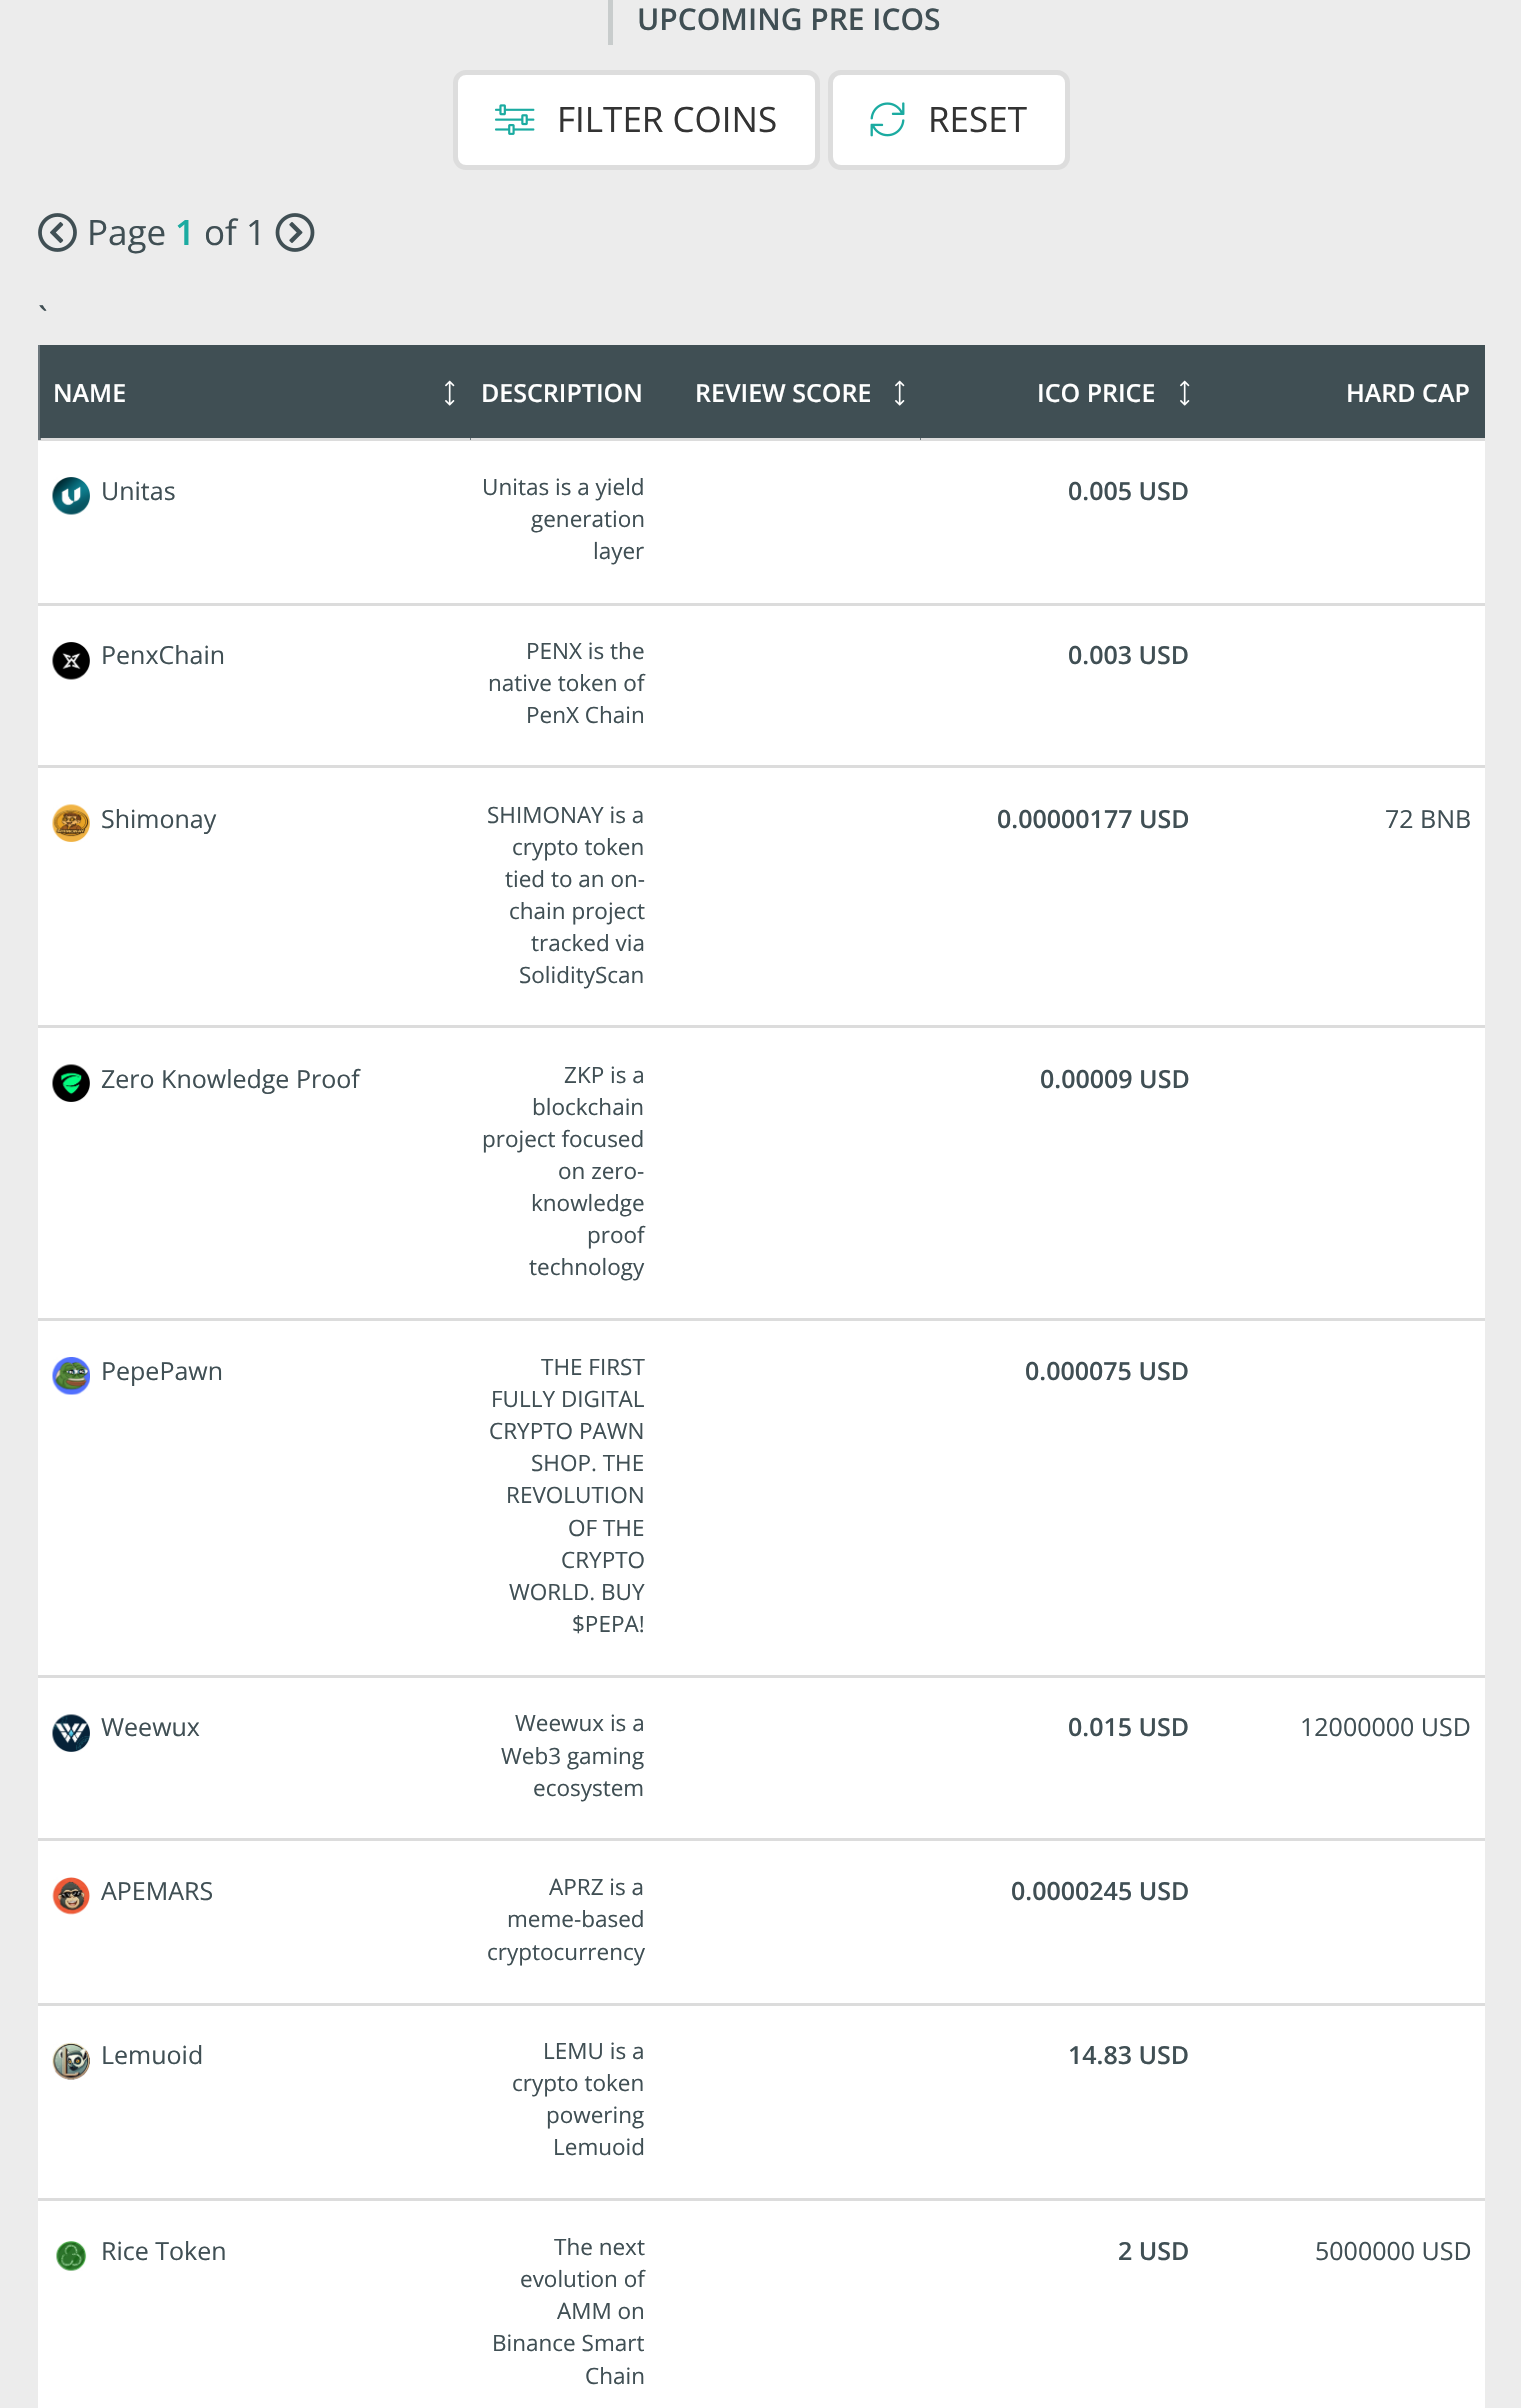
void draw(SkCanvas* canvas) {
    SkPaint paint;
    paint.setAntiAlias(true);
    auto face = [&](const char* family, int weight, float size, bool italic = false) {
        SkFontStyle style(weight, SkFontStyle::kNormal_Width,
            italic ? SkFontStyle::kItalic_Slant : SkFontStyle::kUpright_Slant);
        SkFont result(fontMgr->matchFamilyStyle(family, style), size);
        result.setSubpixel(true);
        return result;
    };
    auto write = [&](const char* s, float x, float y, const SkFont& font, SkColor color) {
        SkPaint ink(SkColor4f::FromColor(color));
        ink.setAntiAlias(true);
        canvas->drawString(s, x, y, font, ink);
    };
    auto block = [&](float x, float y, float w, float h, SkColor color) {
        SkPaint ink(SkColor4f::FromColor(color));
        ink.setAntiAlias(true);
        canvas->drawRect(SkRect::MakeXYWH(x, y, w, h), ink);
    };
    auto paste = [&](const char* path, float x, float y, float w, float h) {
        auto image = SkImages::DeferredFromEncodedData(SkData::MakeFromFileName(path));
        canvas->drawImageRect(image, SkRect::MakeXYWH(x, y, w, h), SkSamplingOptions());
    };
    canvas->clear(SkColorSetRGB(236, 236, 236));
    block(608, 0, 5, 45, SkColorSetRGB(200, 204, 204));
    auto kFont1 = face("Open Sans", 600, 30);
    write("UPCOMING PRE ICOS", 637, 30, kFont1, SkColorSetRGB(64, 79, 84));
    paint.setColor(SK_ColorWHITE);
    canvas->drawRoundRect(SkRect::MakeXYWH(455.5f, 72.5f, 362, 95), 10.5f, 10.5f, paint);
    paint.setStyle(SkPaint::kStroke_Style);
    paint.setStrokeWidth(5);
    paint.setColor(SkColorSetRGB(221, 221, 221));
    canvas->drawRoundRect(SkRect::MakeXYWH(455.5f, 72.5f, 362, 95), 10.5f, 10.5f, paint);
    paste("pic1.png", 495, 104, 40, 31);
    auto kFont2 = face("Open Sans", 400, 35);
    write("FILTER COINS", 557, 132, kFont2, SkColorSetRGB(51, 51, 51));
    paint.setStyle(SkPaint::kFill_Style);
    paint.setColor(SK_ColorWHITE);
    canvas->drawRoundRect(SkRect::MakeXYWH(830.5f, 72.5f, 237, 95), 10.5f, 10.5f, paint);
    paint.setStyle(SkPaint::kStroke_Style);
    paint.setColor(SkColorSetRGB(221, 221, 221));
    canvas->drawRoundRect(SkRect::MakeXYWH(830.5f, 72.5f, 237, 95), 10.5f, 10.5f, paint);
    paste("pic2.png", 870, 102, 35, 35);
    write("RESET", 928, 132, kFont2, SkColorSetRGB(51, 51, 51));
    paste("pic3.png", 38, 213, 39, 39);
    write("Page", 87, 245, kFont2, SkColorSetRGB(64, 79, 84));
    auto kFont3 = face("Open Sans", 600, 35);
    write("1", 175, 245, kFont3, SkColorSetRGB(27, 171, 161));
    write("of 1", 204, 245, kFont2, SkColorSetRGB(64, 79, 84));
    paste("pic4.png", 275, 213, 40, 39);
    write("`", 38, 332, kFont2, SkColorSetRGB(64, 79, 84));
    block(38, 441, 1447, 1967, SK_ColorWHITE);
    block(38, 438, 1447, 3, SkColorSetRGB(220, 220, 220));
    block(38, 345, 3, 95, SkColorSetRGB(108, 118, 124));
    block(40, 345, 1445, 93, SkColorSetRGB(64, 79, 84));
    auto kFont4 = face("Open Sans", 600, 25);
    write("NAME", 53, 402, kFont4, SK_ColorWHITE);
    paste("pic5.png", 445, 380, 10, 26);
    block(470, 438, 1, 2, SkColorSetRGB(108, 118, 124));
    write("DESCRIPTION", 481, 402, kFont4, SK_ColorWHITE);
    write("REVIEW SCORE", 695, 402, kFont4, SK_ColorWHITE);
    paste("pic5.png", 895, 380, 10, 26);
    block(920, 438, 1, 2, SkColorSetRGB(108, 118, 124));
    write("ICO PRICE", 1037, 402, kFont4, SK_ColorWHITE);
    paste("pic5.png", 1180, 380, 10, 26);
    write("HARD CAP", 1346, 402, kFont4, SK_ColorWHITE);
    paste("pic6.png", 52, 477, 38, 38);
    auto kFont5 = face("Open Sans", 400, 25);
    write("Unitas", 101, 500, kFont5, SkColorSetRGB(64, 79, 84));
    auto kFont6 = face("Open Sans", 400, 22.5f);
    write("Unitas is a yield", 482, 495, kFont6, SkColorSetRGB(64, 79, 84));
    write("generation", 531, 527, kFont6, SkColorSetRGB(64, 79, 84));
    write("layer", 593, 559, kFont6, SkColorSetRGB(64, 79, 84));
    write("0.005 USD", 1068, 500, kFont4, SkColorSetRGB(64, 79, 84));
    block(38, 603, 1447, 3, SkColorSetRGB(220, 220, 220));
    paste("pic7.png", 52, 642, 38, 38);
    write("PenxChain", 101, 664, kFont5, SkColorSetRGB(64, 79, 84));
    write("PENX is the", 526, 659, kFont6, SkColorSetRGB(64, 79, 84));
    write("native token of", 488, 691, kFont6, SkColorSetRGB(64, 79, 84));
    write("PenX Chain", 526, 723, kFont6, SkColorSetRGB(64, 79, 84));
    write("0.003 USD", 1068, 664, kFont4, SkColorSetRGB(64, 79, 84));
    block(38, 765, 1447, 3, SkColorSetRGB(220, 220, 220));
    paste("pic8.png", 52, 804, 38, 38);
    write("Shimonay", 101, 828, kFont5, SkColorSetRGB(64, 79, 84));
    write("SHIMONAY is a", 487, 823, kFont6, SkColorSetRGB(64, 79, 84));
    write("crypto token", 512, 855, kFont6, SkColorSetRGB(64, 79, 84));
    write("tied to an on-", 505, 887, kFont6, SkColorSetRGB(64, 79, 84));
    write("chain project", 509, 919, kFont6, SkColorSetRGB(64, 79, 84));
    write("tracked via", 531, 951, kFont6, SkColorSetRGB(64, 79, 84));
    write("SolidityScan", 519, 983, kFont6, SkColorSetRGB(64, 79, 84));
    write("0.00000177 USD", 997, 828, kFont4, SkColorSetRGB(64, 79, 84));
    block(38, 1025, 1447, 3, SkColorSetRGB(220, 220, 220));
    write("72 BNB", 1385, 828, kFont5, SkColorSetRGB(64, 79, 84));
    paste("pic9.png", 52, 1064, 38, 38);
    write("Zero Knowledge Proof", 101, 1088, kFont5, SkColorSetRGB(64, 79, 84));
    write("ZKP is a", 564, 1083, kFont6, SkColorSetRGB(64, 79, 84));
    write("blockchain", 532, 1115, kFont6, SkColorSetRGB(64, 79, 84));
    write("project focused", 482, 1147, kFont6, SkColorSetRGB(64, 79, 84));
    write("on zero-", 558, 1179, kFont6, SkColorSetRGB(64, 79, 84));
    write("knowledge", 531, 1211, kFont6, SkColorSetRGB(64, 79, 84));
    write("proof", 587, 1243, kFont6, SkColorSetRGB(64, 79, 84));
    write("technology", 529, 1275, kFont6, SkColorSetRGB(64, 79, 84));
    write("0.00009 USD", 1040, 1088, kFont4, SkColorSetRGB(64, 79, 84));
    block(38, 1318, 1447, 3, SkColorSetRGB(220, 220, 220));
    paste("pic10.png", 52, 1357, 38, 38);
    write("PepePawn", 101, 1380, kFont5, SkColorSetRGB(64, 79, 84));
    write("THE FIRST", 541, 1375, kFont6, SkColorSetRGB(64, 79, 84));
    write("FULLY DIGITAL", 491, 1407, kFont6, SkColorSetRGB(64, 79, 84));
    write("CRYPTO PAWN", 489, 1439, kFont6, SkColorSetRGB(64, 79, 84));
    write("SHOP. THE", 531, 1471, kFont6, SkColorSetRGB(64, 79, 84));
    write("REVOLUTION", 506, 1503, kFont6, SkColorSetRGB(64, 79, 84));
    write("OF THE", 568, 1536, kFont6, SkColorSetRGB(64, 79, 84));
    write("CRYPTO", 561, 1568, kFont6, SkColorSetRGB(64, 79, 84));
    write("WORLD. BUY", 509, 1600, kFont6, SkColorSetRGB(64, 79, 84));
    write("$PEPA!", 572, 1632, kFont6, SkColorSetRGB(64, 79, 84));
    write("0.000075 USD", 1025, 1380, kFont4, SkColorSetRGB(64, 79, 84));
    block(38, 1675, 1447, 3, SkColorSetRGB(220, 220, 220));
    paste("pic11.png", 52, 1714, 38, 38);
    write("Weewux", 101, 1736, kFont5, SkColorSetRGB(64, 79, 84));
    write("Weewux is a", 515, 1731, kFont6, SkColorSetRGB(64, 79, 84));
    write("Web3 gaming", 501, 1764, kFont6, SkColorSetRGB(64, 79, 84));
    write("ecosystem", 533, 1796, kFont6, SkColorSetRGB(64, 79, 84));
    write("0.015 USD", 1068, 1736, kFont4, SkColorSetRGB(64, 79, 84));
    block(38, 1838, 1447, 3, SkColorSetRGB(220, 220, 220));
    write("12000000 USD", 1300, 1736, kFont5, SkColorSetRGB(64, 79, 84));
    paste("pic12.png", 52, 1877, 38, 38);
    write("APEMARS", 101, 1900, kFont5, SkColorSetRGB(64, 79, 84));
    write("APRZ is a", 549, 1895, kFont6, SkColorSetRGB(64, 79, 84));
    write("meme-based", 507, 1927, kFont6, SkColorSetRGB(64, 79, 84));
    write("cryptocurrency", 487, 1960, kFont6, SkColorSetRGB(64, 79, 84));
    write("0.0000245 USD", 1011, 1900, kFont4, SkColorSetRGB(64, 79, 84));
    block(38, 2003, 1447, 3, SkColorSetRGB(220, 220, 220));
    paste("pic13.png", 52, 2042, 38, 38);
    write("Lemuoid", 101, 2064, kFont5, SkColorSetRGB(64, 79, 84));
    write("LEMU is a", 543, 2059, kFont6, SkColorSetRGB(64, 79, 84));
    write("crypto token", 512, 2091, kFont6, SkColorSetRGB(64, 79, 84));
    write("powering", 546, 2123, kFont6, SkColorSetRGB(64, 79, 84));
    write("Lemuoid", 553, 2155, kFont6, SkColorSetRGB(64, 79, 84));
    write("14.83 USD", 1068, 2064, kFont4, SkColorSetRGB(64, 79, 84));
    block(38, 2198, 1447, 3, SkColorSetRGB(220, 220, 220));
    paste("pic14.png", 56, 2241, 31, 30);
    write("Rice Token", 101, 2260, kFont5, SkColorSetRGB(64, 79, 84));
    write("The next", 554, 2255, kFont6, SkColorSetRGB(64, 79, 84));
    write("evolution of", 520, 2287, kFont6, SkColorSetRGB(64, 79, 84));
    write("AMM on", 557, 2319, kFont6, SkColorSetRGB(64, 79, 84));
    write("Binance Smart", 492, 2351, kFont6, SkColorSetRGB(64, 79, 84));
    write("Chain", 585, 2384, kFont6, SkColorSetRGB(64, 79, 84));
    write("2 USD", 1118, 2260, kFont4, SkColorSetRGB(64, 79, 84));
    write("5000000 USD", 1315, 2260, kFont5, SkColorSetRGB(64, 79, 84));
}
